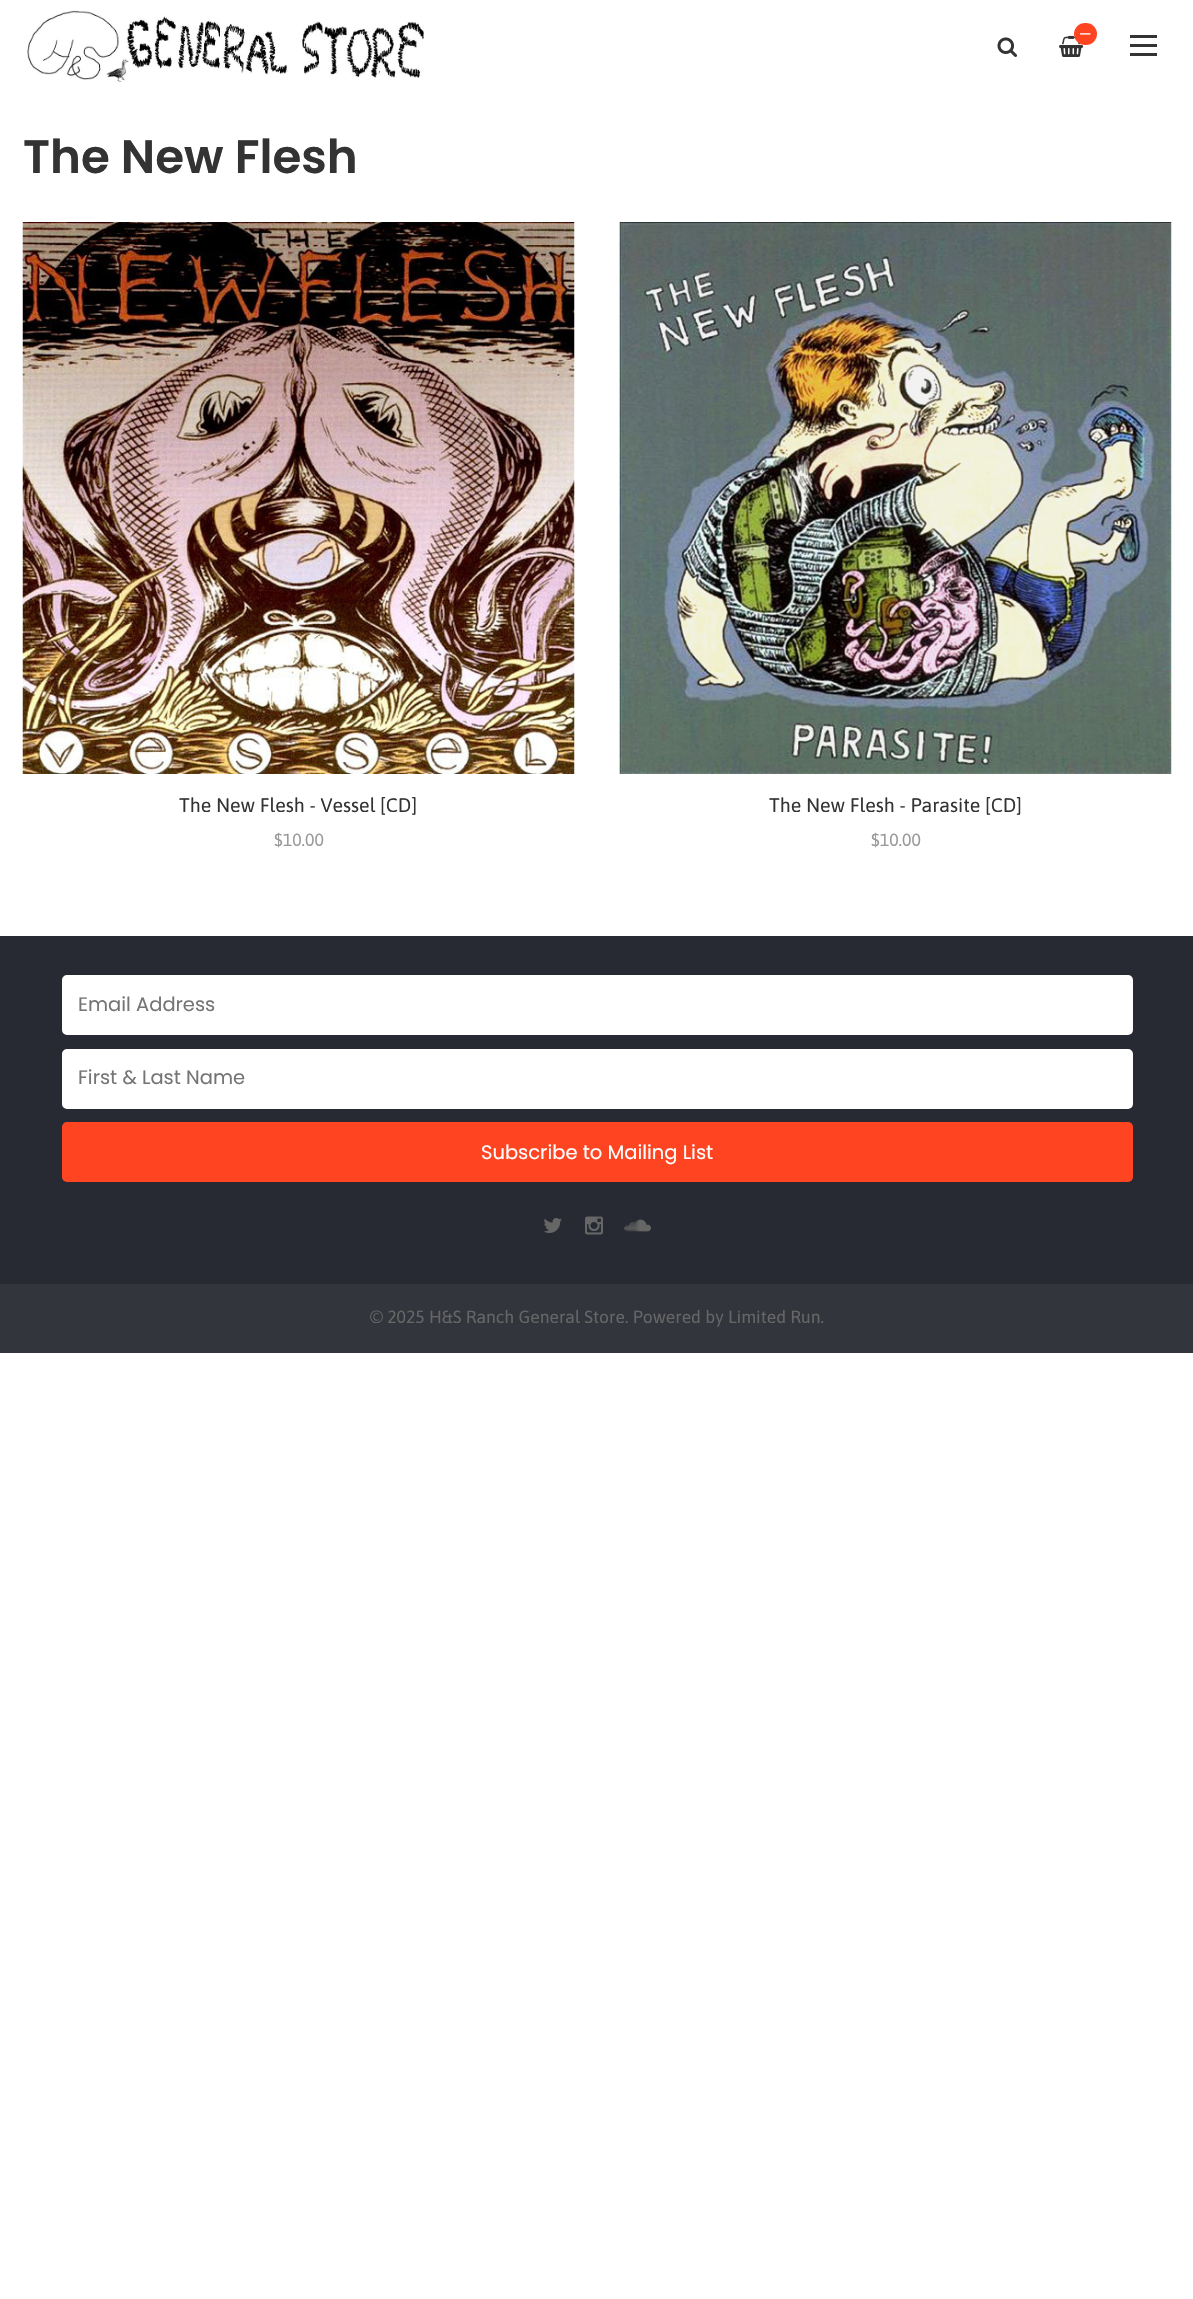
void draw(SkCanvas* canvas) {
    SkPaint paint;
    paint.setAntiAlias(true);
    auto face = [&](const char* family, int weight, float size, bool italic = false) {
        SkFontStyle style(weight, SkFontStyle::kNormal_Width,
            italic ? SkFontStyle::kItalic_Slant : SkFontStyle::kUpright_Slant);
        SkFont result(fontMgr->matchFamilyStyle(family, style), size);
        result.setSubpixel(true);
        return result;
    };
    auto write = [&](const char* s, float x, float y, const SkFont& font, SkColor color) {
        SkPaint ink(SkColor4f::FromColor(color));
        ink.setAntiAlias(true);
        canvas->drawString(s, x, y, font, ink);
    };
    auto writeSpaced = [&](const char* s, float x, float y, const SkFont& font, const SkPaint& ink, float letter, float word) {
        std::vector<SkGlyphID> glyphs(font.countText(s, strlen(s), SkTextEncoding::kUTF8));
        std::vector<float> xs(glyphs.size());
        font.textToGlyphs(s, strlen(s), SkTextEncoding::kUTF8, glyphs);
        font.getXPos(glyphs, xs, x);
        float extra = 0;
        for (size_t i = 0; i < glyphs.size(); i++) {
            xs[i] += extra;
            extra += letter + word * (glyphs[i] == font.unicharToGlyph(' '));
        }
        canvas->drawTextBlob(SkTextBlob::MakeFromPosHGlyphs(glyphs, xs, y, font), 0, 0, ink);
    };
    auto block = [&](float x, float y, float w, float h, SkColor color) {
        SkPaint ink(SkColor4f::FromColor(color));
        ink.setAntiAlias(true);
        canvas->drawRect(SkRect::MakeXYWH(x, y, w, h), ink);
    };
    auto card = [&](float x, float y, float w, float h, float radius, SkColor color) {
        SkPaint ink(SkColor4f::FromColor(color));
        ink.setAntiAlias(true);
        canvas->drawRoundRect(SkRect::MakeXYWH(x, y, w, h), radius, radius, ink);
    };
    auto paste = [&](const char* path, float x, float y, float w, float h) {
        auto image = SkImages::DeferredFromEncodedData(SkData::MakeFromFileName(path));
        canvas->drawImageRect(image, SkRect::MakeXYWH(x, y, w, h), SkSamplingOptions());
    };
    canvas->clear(SK_ColorWHITE);
    paste("pic1.png", 27, 10, 397, 72);
    paste("pic2.png", 1059, 35, 25, 22);
    card(1074, 23, 23, 22, 11, SkColorSetRGB(255, 68, 34));
    auto kFont1 = face("Poppins", 400, 14);
    paint.setColor(SK_ColorWHITE);
    writeSpaced("—", 1079, 39, kFont1, paint, 1, 0);
    paste("pic3.png", 997, 37, 20, 20);
    block(1130, 44, 27, 3, SkColorSetRGB(51, 51, 51));
    block(1130, 35, 27, 3, SkColorSetRGB(51, 51, 51));
    block(1130, 53, 27, 3, SkColorSetRGB(51, 51, 51));
    auto kFont2 = face("Poppins", 600, 46.75f);
    write("The New Flesh", 23, 173, kFont2, SkColorSetRGB(51, 51, 51));
    paste("pic4.png", 22, 222, 553, 552);
    auto kFont3 = face("Asap", 400, 19.5f);
    write("The New Flesh - Vessel [CD]", 179, 812, kFont3, SkColorSetRGB(51, 51, 51));
    auto kFont4 = face("Asap", 400, 17.55f);
    write("$10.00", 274, 846, kFont4, SkColorSetRGB(153, 153, 153));
    paste("pic5.png", 619, 222, 553, 552);
    write("The New Flesh - Parasite [CD]", 769, 812, kFont3, SkColorSetRGB(51, 51, 51));
    write("$10.00", 871, 846, kFont4, SkColorSetRGB(153, 153, 153));
    block(0, 936, 1193, 348, SkColorSetRGB(39, 42, 50));
    canvas->drawRoundRect(SkRect::MakeXYWH(63, 976, 1069, 58), 4, 4, paint);
    paint.setStyle(SkPaint::kStroke_Style);
    paint.setStrokeWidth(2);
    canvas->drawRoundRect(SkRect::MakeXYWH(63, 976, 1069, 58), 4, 4, paint);
    auto kFont5 = face("Poppins", 400, 19.5f);
    write("Email Address", 78, 1011, kFont5, SkColorSetRGB(117, 117, 117));
    paint.setStyle(SkPaint::kFill_Style);
    canvas->drawRoundRect(SkRect::MakeXYWH(63, 1050, 1069, 58), 4, 4, paint);
    paint.setStyle(SkPaint::kStroke_Style);
    canvas->drawRoundRect(SkRect::MakeXYWH(63, 1050, 1069, 58), 4, 4, paint);
    write("First & Last Name", 78, 1084, kFont5, SkColorSetRGB(117, 117, 117));
    card(62, 1122, 1071, 60, 5, SkColorSetRGB(255, 68, 34));
    write("Subscribe to Mailing List", 481, 1159, kFont5, SK_ColorWHITE);
    paste("pic6.png", 544, 1218, 18, 15);
    paste("pic7.png", 585, 1216, 18, 19);
    paste("pic8.png", 624, 1219, 27, 13);
    block(0, 1284, 1193, 69, SkColorSetRGB(50, 53, 60));
    write("© 2025 H&S Ranch General Store. Powered by", 370, 1323, kFont4, SkColorSetRGB(102, 102, 102));
    write("Limited Run.", 728, 1323, kFont4, SkColorSetRGB(102, 102, 102));
}
